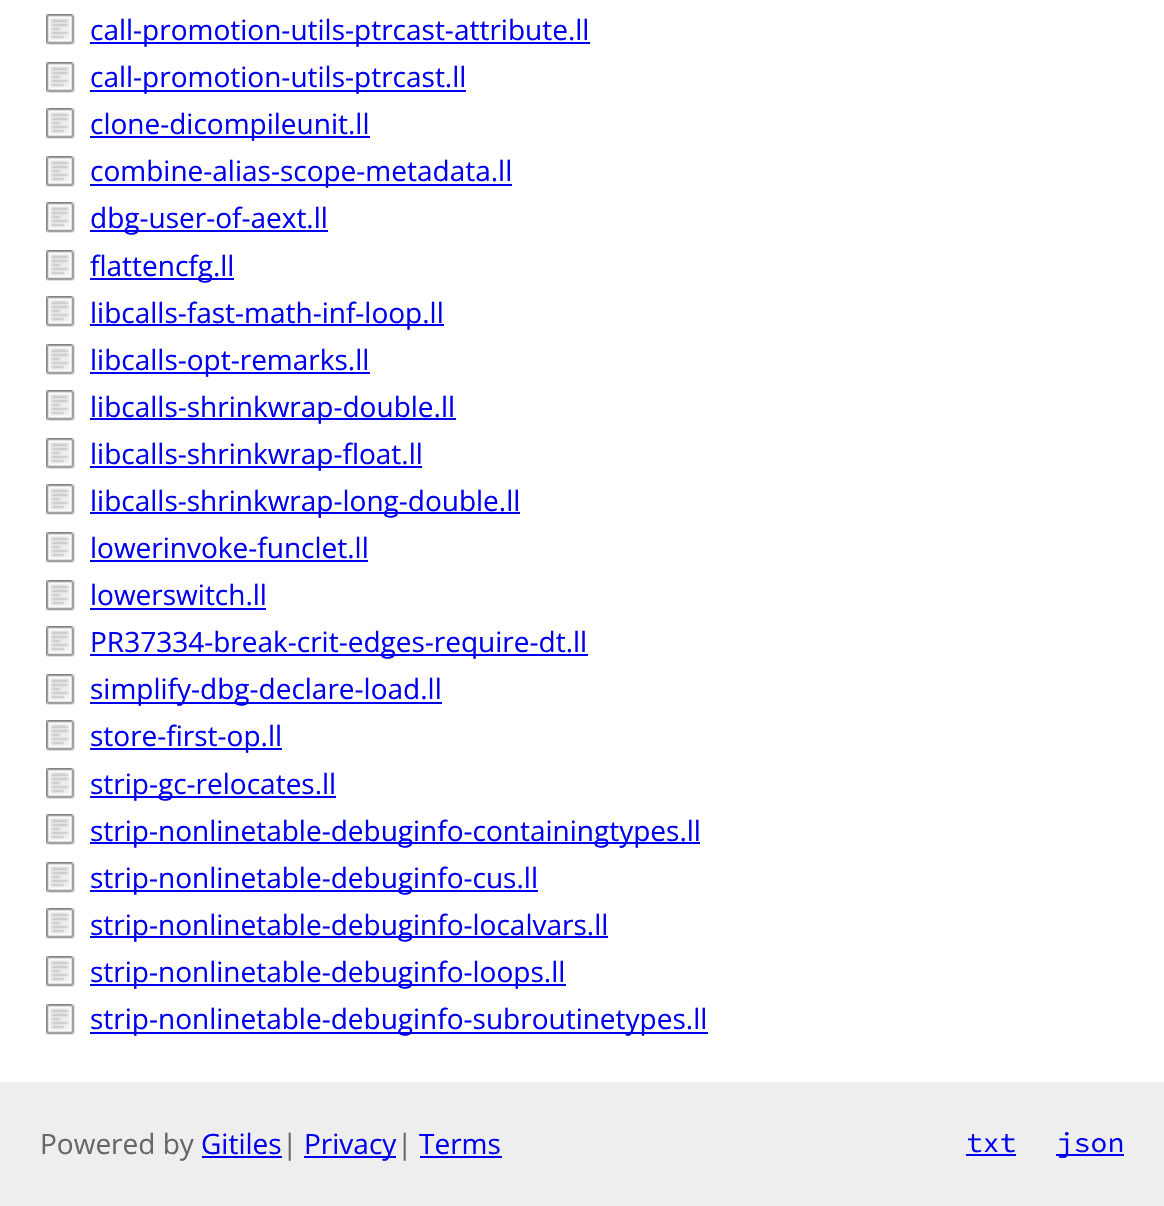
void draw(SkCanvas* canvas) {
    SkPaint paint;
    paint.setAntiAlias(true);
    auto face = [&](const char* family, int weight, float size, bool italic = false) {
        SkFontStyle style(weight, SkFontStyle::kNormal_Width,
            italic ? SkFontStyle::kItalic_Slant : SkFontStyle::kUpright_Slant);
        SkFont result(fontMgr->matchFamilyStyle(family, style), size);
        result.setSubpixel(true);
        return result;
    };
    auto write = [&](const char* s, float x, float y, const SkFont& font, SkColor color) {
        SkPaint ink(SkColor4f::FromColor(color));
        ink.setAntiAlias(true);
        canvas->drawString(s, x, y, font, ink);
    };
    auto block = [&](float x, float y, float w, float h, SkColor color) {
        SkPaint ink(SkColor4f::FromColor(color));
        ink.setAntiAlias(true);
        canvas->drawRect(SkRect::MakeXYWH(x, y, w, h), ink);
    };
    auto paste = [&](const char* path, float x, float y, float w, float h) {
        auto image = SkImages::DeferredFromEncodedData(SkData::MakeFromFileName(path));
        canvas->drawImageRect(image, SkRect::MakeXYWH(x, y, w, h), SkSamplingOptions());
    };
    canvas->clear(SK_ColorWHITE);
    paste("pic1.png", 46, 14, 29, 31);
    block(90, 42, 500, 2, SkColorSetRGB(0, 0, 238));
    auto kFont1 = face("Open Sans", 400, 28);
    write("call-promotion-utils-ptrcast-attribute.ll", 90, 40, kFont1, SkColorSetRGB(0, 0, 238));
    paste("pic1.png", 46, 62, 29, 31);
    block(90, 90, 376, 2, SkColorSetRGB(0, 0, 238));
    write("call-promotion-utils-ptrcast.ll", 90, 87, kFont1, SkColorSetRGB(0, 0, 238));
    paste("pic1.png", 46, 108, 29, 31);
    block(90, 136, 280, 2, SkColorSetRGB(0, 0, 238));
    write("clone-dicompileunit.ll", 90, 134, kFont1, SkColorSetRGB(0, 0, 238));
    paste("pic1.png", 46, 156, 29, 31);
    block(90, 184, 422, 2, SkColorSetRGB(0, 0, 238));
    write("combine-alias-scope-metadata.ll", 90, 181, kFont1, SkColorSetRGB(0, 0, 238));
    paste("pic1.png", 46, 202, 29, 31);
    block(90, 230, 238, 2, SkColorSetRGB(0, 0, 238));
    write("dbg-user-of-aext.ll", 90, 228, kFont1, SkColorSetRGB(0, 0, 238));
    paste("pic1.png", 46, 250, 29, 31);
    block(90, 278, 144, 2, SkColorSetRGB(0, 0, 238));
    write("flattencfg.ll", 90, 276, kFont1, SkColorSetRGB(0, 0, 238));
    paste("pic1.png", 46, 296, 29, 31);
    block(90, 324, 354, 2, SkColorSetRGB(0, 0, 238));
    write("libcalls-fast-math-inf-loop.ll", 90, 323, kFont1, SkColorSetRGB(0, 0, 238));
    paste("pic1.png", 46, 344, 29, 31);
    block(90, 372, 280, 2, SkColorSetRGB(0, 0, 238));
    write("libcalls-opt-remarks.ll", 90, 370, kFont1, SkColorSetRGB(0, 0, 238));
    paste("pic1.png", 46, 390, 29, 31);
    block(90, 418, 366, 2, SkColorSetRGB(0, 0, 238));
    write("libcalls-shrinkwrap-double.ll", 90, 417, kFont1, SkColorSetRGB(0, 0, 238));
    paste("pic1.png", 46, 438, 29, 31);
    block(90, 466, 332, 2, SkColorSetRGB(0, 0, 238));
    write("libcalls-shrinkwrap-float.ll", 90, 464, kFont1, SkColorSetRGB(0, 0, 238));
    paste("pic1.png", 46, 484, 29, 31);
    block(90, 512, 430, 2, SkColorSetRGB(0, 0, 238));
    write("libcalls-shrinkwrap-long-double.ll", 90, 511, kFont1, SkColorSetRGB(0, 0, 238));
    paste("pic1.png", 46, 532, 29, 31);
    write("lowerinvoke-funclet.ll", 90, 558, kFont1, SkColorSetRGB(0, 0, 238));
    block(90, 560, 278, 2, SkColorSetRGB(0, 0, 238));
    paste("pic1.png", 46, 580, 29, 31);
    write("lowerswitch.ll", 90, 605, kFont1, SkColorSetRGB(0, 0, 238));
    block(90, 608, 176, 2, SkColorSetRGB(0, 0, 238));
    paste("pic1.png", 46, 626, 29, 31);
    block(90, 654, 498, 2, SkColorSetRGB(0, 0, 238));
    write("PR37334-break-crit-edges-require-dt.ll", 90, 652, kFont1, SkColorSetRGB(0, 0, 238));
    paste("pic1.png", 46, 674, 29, 31);
    block(90, 702, 352, 2, SkColorSetRGB(0, 0, 238));
    write("simplify-dbg-declare-load.ll", 90, 699, kFont1, SkColorSetRGB(0, 0, 238));
    paste("pic1.png", 46, 720, 29, 31);
    block(90, 748, 192, 2, SkColorSetRGB(0, 0, 238));
    write("store-first-op.ll", 90, 746, kFont1, SkColorSetRGB(0, 0, 238));
    paste("pic1.png", 46, 768, 29, 31);
    block(90, 796, 246, 2, SkColorSetRGB(0, 0, 238));
    write("strip-gc-relocates.ll", 90, 794, kFont1, SkColorSetRGB(0, 0, 238));
    paste("pic1.png", 46, 814, 29, 31);
    block(90, 842, 610, 2, SkColorSetRGB(0, 0, 238));
    write("strip-nonlinetable-debuginfo-containingtypes.ll", 90, 841, kFont1, SkColorSetRGB(0, 0, 238));
    paste("pic1.png", 46, 862, 29, 31);
    block(90, 890, 448, 2, SkColorSetRGB(0, 0, 238));
    write("strip-nonlinetable-debuginfo-cus.ll", 90, 888, kFont1, SkColorSetRGB(0, 0, 238));
    paste("pic1.png", 46, 908, 29, 31);
    block(90, 936, 518, 2, SkColorSetRGB(0, 0, 238));
    write("strip-nonlinetable-debuginfo-localvars.ll", 90, 935, kFont1, SkColorSetRGB(0, 0, 238));
    paste("pic1.png", 46, 956, 29, 31);
    block(90, 984, 476, 2, SkColorSetRGB(0, 0, 238));
    write("strip-nonlinetable-debuginfo-loops.ll", 90, 982, kFont1, SkColorSetRGB(0, 0, 238));
    paste("pic1.png", 46, 1004, 29, 31);
    block(90, 1032, 618, 2, SkColorSetRGB(0, 0, 238));
    write("strip-nonlinetable-debuginfo-subroutinetypes.ll", 90, 1029, kFont1, SkColorSetRGB(0, 0, 238));
    block(0, 1082, 1164, 124, SkColorSetRGB(238, 238, 238));
    write("Powered by", 40, 1154, kFont1, SkColorSetRGB(102, 102, 102));
    write("Gitiles", 201, 1154, kFont1, SkColorSetRGB(0, 0, 238));
    block(202, 1156, 80, 2, SkColorSetRGB(0, 0, 238));
    write("|", 282, 1154, kFont1, SkColorSetRGB(102, 102, 102));
    block(304, 1156, 92, 2, SkColorSetRGB(0, 0, 238));
    write("Privacy", 304, 1154, kFont1, SkColorSetRGB(0, 0, 238));
    write("|", 397, 1154, kFont1, SkColorSetRGB(102, 102, 102));
    write("Terms", 419, 1154, kFont1, SkColorSetRGB(0, 0, 238));
    block(420, 1156, 82, 2, SkColorSetRGB(0, 0, 238));
    auto kFont2 = face("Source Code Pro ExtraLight", 200, 28);
    write("txt", 966, 1152, kFont2, SkColorSetRGB(0, 0, 238));
    block(966, 1154, 50, 2, SkColorSetRGB(0, 0, 238));
    block(1056, 1154, 68, 2, SkColorSetRGB(0, 0, 238));
    write("json", 1057, 1152, kFont2, SkColorSetRGB(0, 0, 238));
}
